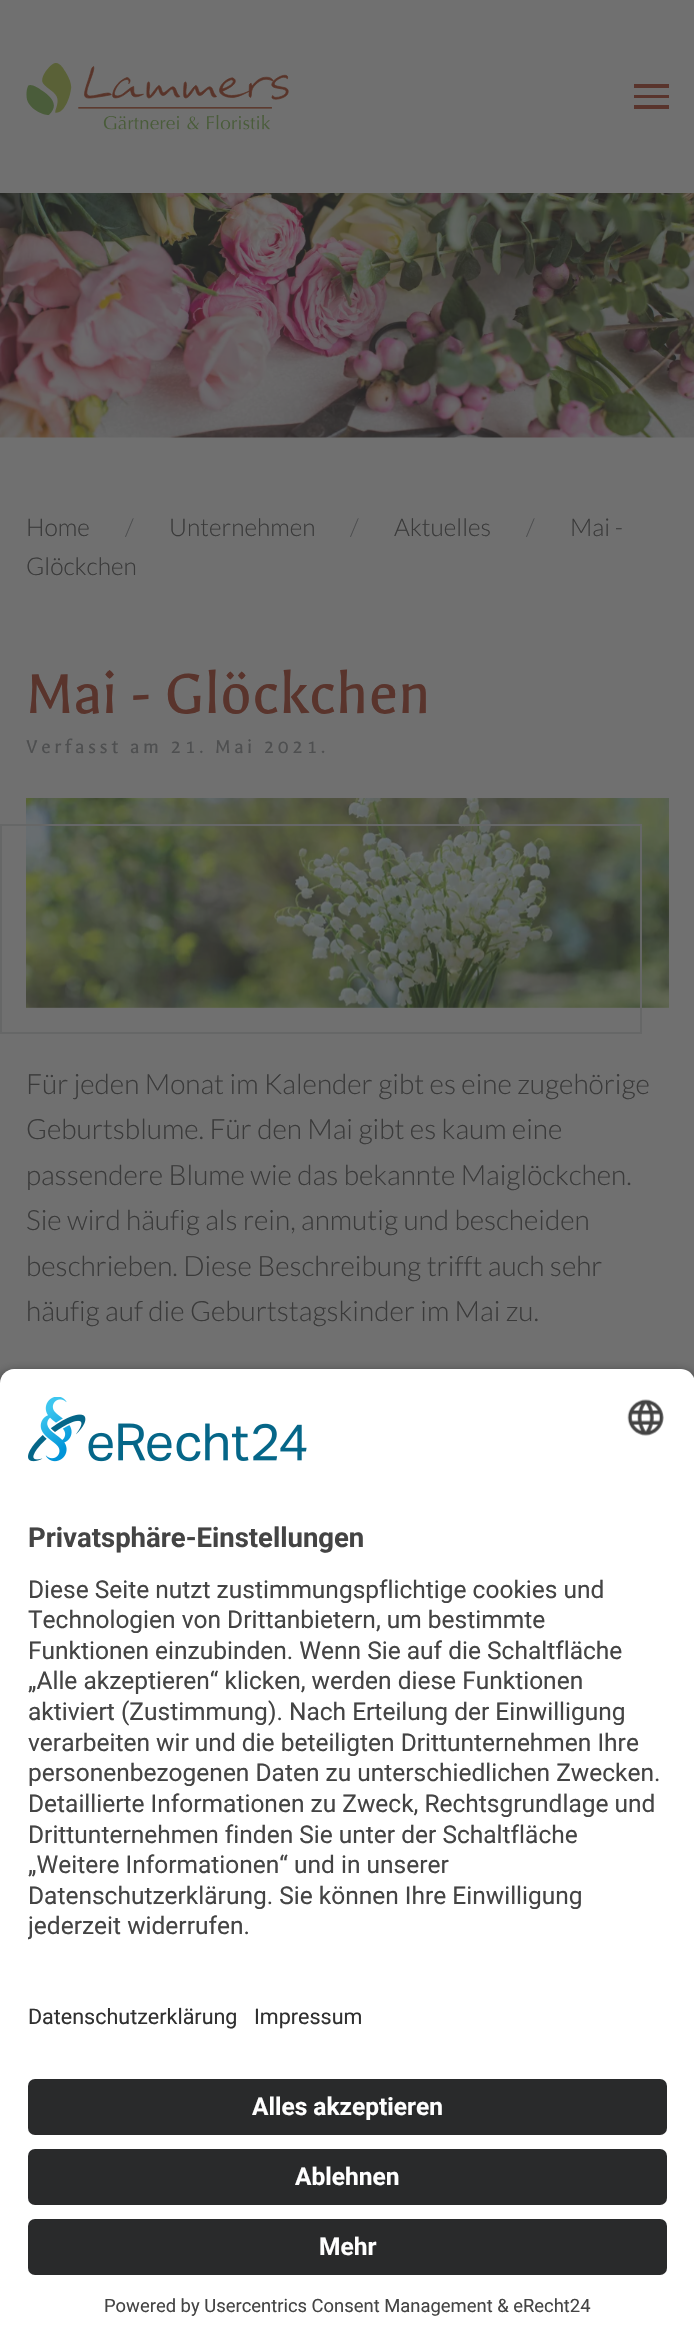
void draw(SkCanvas* canvas) {
    SkPaint paint;
    paint.setAntiAlias(true);
    auto face = [&](const char* family, int weight, float size, bool italic = false) {
        SkFontStyle style(weight, SkFontStyle::kNormal_Width,
            italic ? SkFontStyle::kItalic_Slant : SkFontStyle::kUpright_Slant);
        SkFont result(fontMgr->matchFamilyStyle(family, style), size);
        result.setSubpixel(true);
        return result;
    };
    auto write = [&](const char* s, float x, float y, const SkFont& font, SkColor color) {
        SkPaint ink(SkColor4f::FromColor(color));
        ink.setAntiAlias(true);
        canvas->drawString(s, x, y, font, ink);
    };
    auto writeSpaced = [&](const char* s, float x, float y, const SkFont& font, const SkPaint& ink, float letter, float word) {
        std::vector<SkGlyphID> glyphs(font.countText(s, strlen(s), SkTextEncoding::kUTF8));
        std::vector<float> xs(glyphs.size());
        font.textToGlyphs(s, strlen(s), SkTextEncoding::kUTF8, glyphs);
        font.getXPos(glyphs, xs, x);
        float extra = 0;
        for (size_t i = 0; i < glyphs.size(); i++) {
            xs[i] += extra;
            extra += letter + word * (glyphs[i] == font.unicharToGlyph(' '));
        }
        canvas->drawTextBlob(SkTextBlob::MakeFromPosHGlyphs(glyphs, xs, y, font), 0, 0, ink);
    };
    auto block = [&](float x, float y, float w, float h, SkColor color) {
        SkPaint ink(SkColor4f::FromColor(color));
        ink.setAntiAlias(true);
        canvas->drawRect(SkRect::MakeXYWH(x, y, w, h), ink);
    };
    auto card = [&](float x, float y, float w, float h, float radius, SkColor color) {
        SkPaint ink(SkColor4f::FromColor(color));
        ink.setAntiAlias(true);
        canvas->drawRoundRect(SkRect::MakeXYWH(x, y, w, h), radius, radius, ink);
    };
    auto paste = [&](const char* path, float x, float y, float w, float h) {
        auto image = SkImages::DeferredFromEncodedData(SkData::MakeFromFileName(path));
        canvas->drawImageRect(image, SkRect::MakeXYWH(x, y, w, h), SkSamplingOptions());
    };
    canvas->clear(SkColorSetRGB(112, 112, 112));
    paste("pic1.png", 26, 63, 263, 67);
    block(634, 84, 35, 4, SkColorSetRGB(89, 52, 44));
    block(634, 95, 35, 3, SkColorSetRGB(89, 52, 44));
    block(634, 105, 35, 4, SkColorSetRGB(89, 52, 44));
    paste("pic2.png", 0, 193, 694, 245);
    auto kFont1 = face("Lato", 300, 24.5f);
    write("/", 526, 536, kFont1, SkColorSetRGB(78, 79, 80));
    write("Mai -", 570, 536, kFont1, SkColorSetRGB(58, 58, 58));
    write("Glöckchen", 26, 575, kFont1, SkColorSetRGB(58, 58, 58));
    write("Home", 26, 536, kFont1, SkColorSetRGB(58, 58, 58));
    write("/", 125, 536, kFont1, SkColorSetRGB(78, 79, 80));
    write("Unternehmen", 169, 536, kFont1, SkColorSetRGB(58, 58, 58));
    write("/", 350, 536, kFont1, SkColorSetRGB(78, 79, 80));
    write("Aktuelles", 394, 536, kFont1, SkColorSetRGB(58, 58, 58));
    auto kFont2 = face("Galdeano", 400, 64);
    write("Mai - Glöckchen", 26, 713, kFont2, SkColorSetRGB(89, 52, 44));
    auto kFont3 = face("Galdeano", 400, 21);
    paint.setColor(SkColorSetRGB(78, 79, 80));
    writeSpaced("Verfasst am 21. Mai 2021.", 26, 753, kFont3, paint, 3.5f, 0);
    paste("pic3.png", 26, 798, 643, 210);
    paint.setStyle(SkPaint::kStroke_Style);
    paint.setStrokeWidth(2);
    paint.setColor(SkColorSetRGB(102, 103, 103));
    canvas->drawRect(SkRect::MakeXYWH(1, 825, 640, 208), paint);
    auto kFont4 = face("Lato", 300, 28);
    write("Für jeden Monat im Kalender gibt es eine zugehörige", 26, 1094, kFont4, SkColorSetRGB(58, 58, 58));
    write("Geburtsblume. Für den Mai gibt es kaum eine", 26, 1139, kFont4, SkColorSetRGB(58, 58, 58));
    write("passendere Blume wie das bekannte Maiglöckchen.", 26, 1185, kFont4, SkColorSetRGB(58, 58, 58));
    write("Sie wird häufig als rein, anmutig und bescheiden", 26, 1230, kFont4, SkColorSetRGB(58, 58, 58));
    write("beschrieben. Diese Beschreibung trifft auch sehr", 26, 1276, kFont4, SkColorSetRGB(58, 58, 58));
    write("häufig auf die Geburtstagskinder im Mai zu.", 26, 1321, kFont4, SkColorSetRGB(58, 58, 58));
    paint.setStyle(SkPaint::kFill_Style);
    paint.setColor(SkColorSetARGB(204, 0, 0, 0));
    paint.setMaskFilter(SkMaskFilter::MakeBlur(kNormal_SkBlurStyle, 6));
    canvas->drawRoundRect(SkRect::MakeXYWH(0, 1374, 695, 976), 14, 14, paint);
    paint.setMaskFilter(nullptr);
    paint.setColor(SK_ColorWHITE);
    canvas->drawPath(SkPathBuilder().moveTo(14, 1369).lineTo(681, 1369).cubicTo(688.5f, 1369, 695, 1375.5f, 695, 1383).lineTo(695, 1978).lineTo(0, 1978).lineTo(0, 1383).cubicTo(0, 1375.5f, 6.5f, 1369, 14, 1369).close().detach(), paint);
    paste("pic4.png", 28, 1397, 279, 65);
    paste("pic5.png", 627, 1399, 37, 37);
    auto kFont5 = face("Roboto", 700, 27.5f);
    write("Privatsphäre-Einstellungen", 28, 1547, kFont5, SkColorSetRGB(68, 68, 68));
    auto kFont6 = face("Roboto", 400, 24.5f);
    write("Diese Seite nutzt zustimmungspflichtige cookies und", 28, 1598, kFont6, SkColorSetRGB(68, 68, 68));
    write("Technologien von Drittanbietern, um bestimmte", 28, 1628, kFont6, SkColorSetRGB(68, 68, 68));
    write("Funktionen einzubinden. Wenn Sie auf die Schaltfläche", 28, 1659, kFont6, SkColorSetRGB(68, 68, 68));
    write("„Alle akzeptieren“ klicken, werden diese Funktionen", 28, 1689, kFont6, SkColorSetRGB(68, 68, 68));
    write("aktiviert (Zustimmung). Nach Erteilung der Einwilligung", 28, 1720, kFont6, SkColorSetRGB(68, 68, 68));
    write("verarbeiten wir und die beteiligten Drittunternehmen Ihre", 28, 1751, kFont6, SkColorSetRGB(68, 68, 68));
    write("personenbezogenen Daten zu unterschiedlichen Zwecken.", 28, 1781, kFont6, SkColorSetRGB(68, 68, 68));
    write("Detaillierte Informationen zu Zweck, Rechtsgrundlage und", 28, 1812, kFont6, SkColorSetRGB(68, 68, 68));
    write("Drittunternehmen finden Sie unter der Schaltfläche", 28, 1843, kFont6, SkColorSetRGB(68, 68, 68));
    write("„Weitere Informationen“ und in unserer", 28, 1873, kFont6, SkColorSetRGB(68, 68, 68));
    write("Datenschutzerklärung. Sie können Ihre Einwilligung", 28, 1904, kFont6, SkColorSetRGB(68, 68, 68));
    canvas->save();
    canvas->clipRect(SkRect::MakeXYWH(28, 1568, 639, 382));
    write("jederzeit widerrufen.", 28, 1934, kFont6, SkColorSetRGB(68, 68, 68));
    canvas->restore();
    block(0, 1978, 694, 367, SK_ColorWHITE);
    auto kFont7 = face("Roboto", 400, 21.5f);
    write("Datenschutzerklärung", 28, 2024, kFont7, SkColorSetRGB(48, 48, 48));
    write("Impressum", 254, 2024, kFont7, SkColorSetRGB(48, 48, 48));
    card(28, 2079, 639, 56, 7, SkColorSetRGB(41, 42, 43));
    auto kFont8 = face("Roboto", 700, 24.5f);
    write("Alles akzeptieren", 252, 2115, kFont8, SK_ColorWHITE);
    card(28, 2149, 639, 56, 7, SkColorSetRGB(41, 42, 43));
    write("Ablehnen", 295, 2185, kFont8, SK_ColorWHITE);
    card(28, 2219, 639, 56, 7, SkColorSetRGB(41, 42, 43));
    write("Mehr", 319, 2255, kFont8, SK_ColorWHITE);
    auto kFont9 = face("Roboto", 400, 18.4f);
    write("Powered by Usercentrics Consent Management & eRecht24", 104, 2312, kFont9, SkColorSetRGB(68, 68, 68));
}
